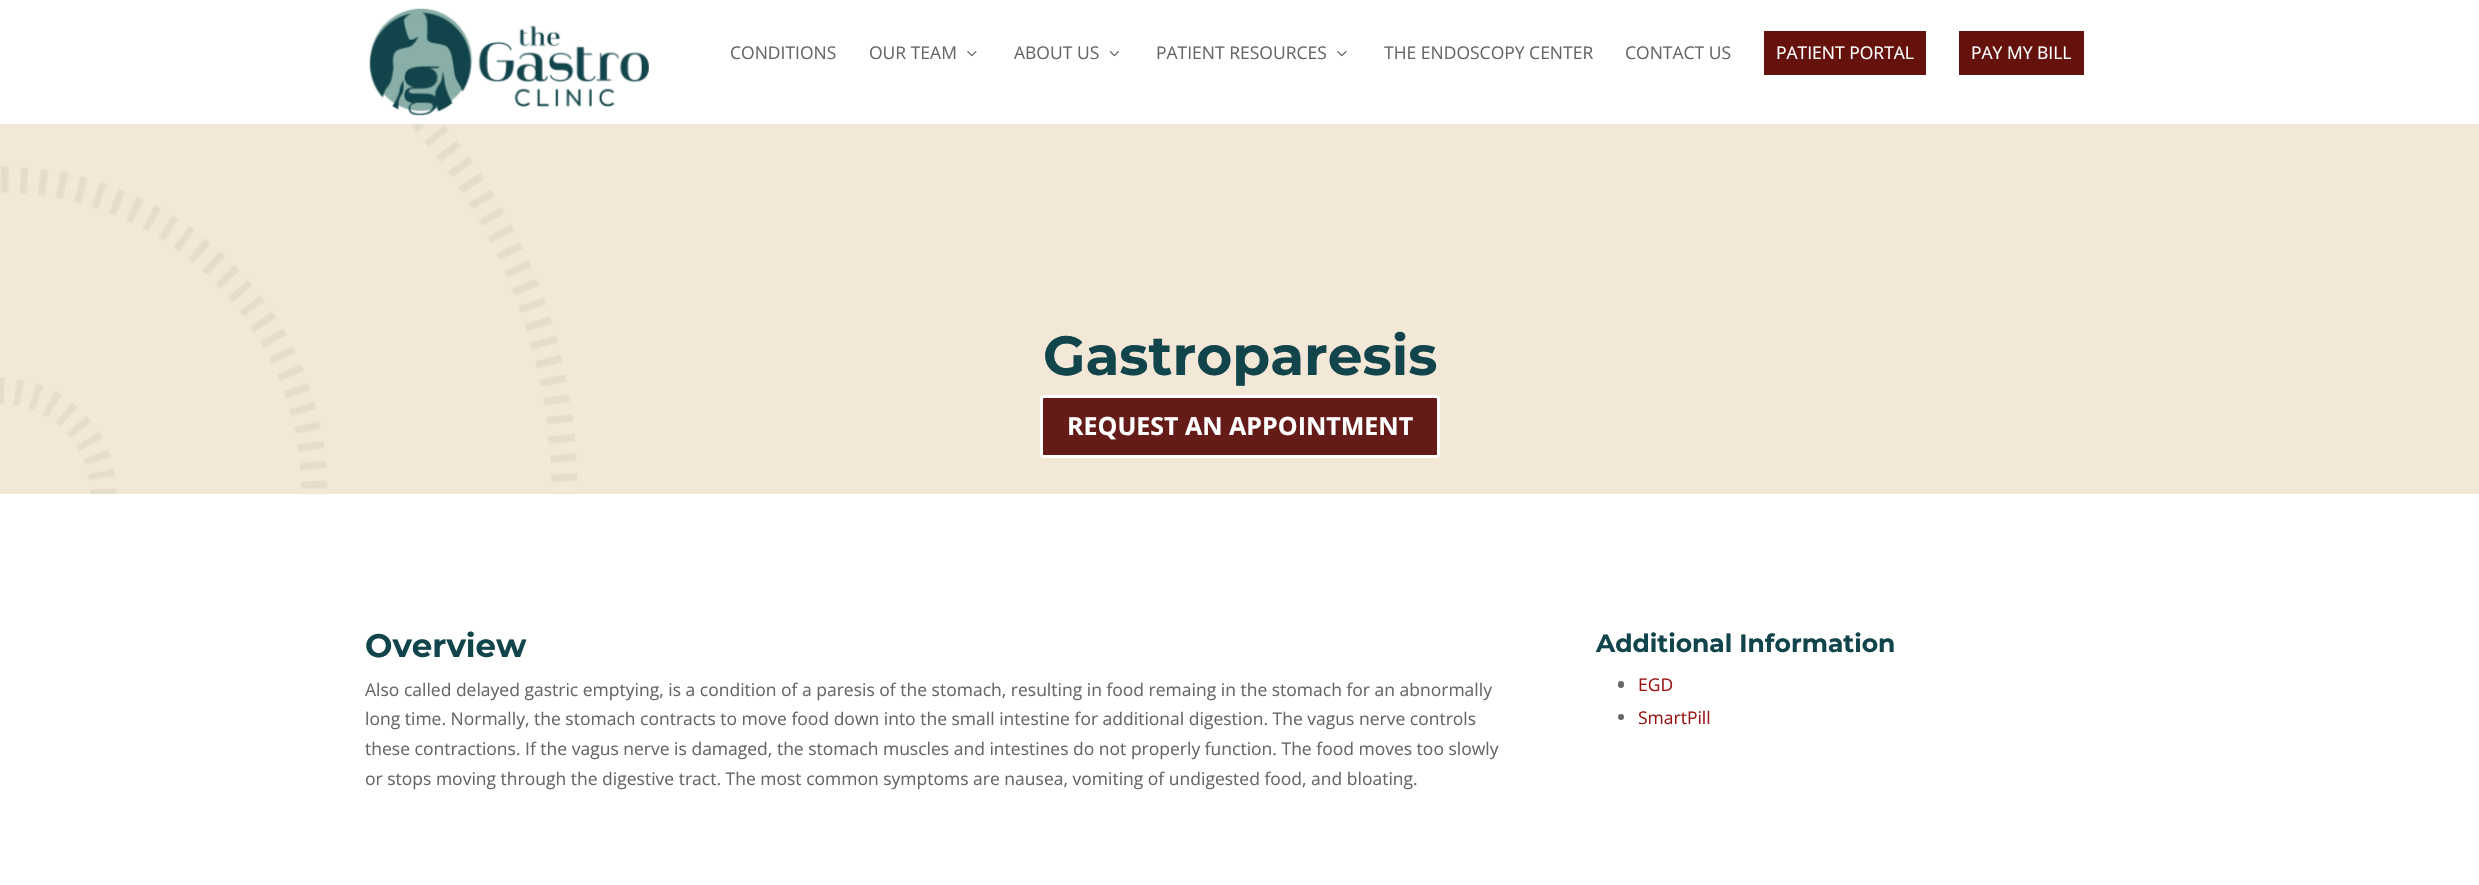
void draw(SkCanvas* canvas) {
    SkPaint paint;
    paint.setAntiAlias(true);
    auto face = [&](const char* family, int weight, float size, bool italic = false) {
        SkFontStyle style(weight, SkFontStyle::kNormal_Width,
            italic ? SkFontStyle::kItalic_Slant : SkFontStyle::kUpright_Slant);
        SkFont result(fontMgr->matchFamilyStyle(family, style), size);
        result.setSubpixel(true);
        return result;
    };
    auto write = [&](const char* s, float x, float y, const SkFont& font, SkColor color) {
        SkPaint ink(SkColor4f::FromColor(color));
        ink.setAntiAlias(true);
        canvas->drawString(s, x, y, font, ink);
    };
    auto block = [&](float x, float y, float w, float h, SkColor color) {
        SkPaint ink(SkColor4f::FromColor(color));
        ink.setAntiAlias(true);
        canvas->drawRect(SkRect::MakeXYWH(x, y, w, h), ink);
    };
    auto card = [&](float x, float y, float w, float h, float radius, SkColor color) {
        SkPaint ink(SkColor4f::FromColor(color));
        ink.setAntiAlias(true);
        canvas->drawRoundRect(SkRect::MakeXYWH(x, y, w, h), radius, radius, ink);
    };
    auto paste = [&](const char* path, float x, float y, float w, float h) {
        auto image = SkImages::DeferredFromEncodedData(SkData::MakeFromFileName(path));
        canvas->drawImageRect(image, SkRect::MakeXYWH(x, y, w, h), SkSamplingOptions());
    };
    canvas->clear(SK_ColorWHITE);
    paste("pic1.png", 369, 8, 280, 108);
    auto kFont1 = face("Open Sans", 400, 17.5f);
    write("CONDITIONS", 730, 59, kFont1, SkColorSetRGB(102, 102, 102));
    write("OUR TEAM", 869, 59, kFont1, SkColorSetRGB(102, 102, 102));
    paste("pic2.png", 967, 51, 10, 6);
    write("ABOUT US", 1014, 59, kFont1, SkColorSetRGB(102, 102, 102));
    paste("pic3.png", 1109, 51, 10, 6);
    write("PATIENT RESOURCES", 1156, 59, kFont1, SkColorSetRGB(102, 102, 102));
    paste("pic2.png", 1337, 51, 10, 6);
    write("THE ENDOSCOPY CENTER", 1384, 59, kFont1, SkColorSetRGB(102, 102, 102));
    write("CONTACT US", 1625, 59, kFont1, SkColorSetRGB(102, 102, 102));
    block(1764, 31, 162, 44, SkColorSetRGB(101, 18, 13));
    write("PATIENT PORTAL", 1776, 59, kFont1, SK_ColorWHITE);
    block(1959, 31, 125, 44, SkColorSetRGB(101, 18, 13));
    write("PAY MY BILL", 1971, 59, kFont1, SK_ColorWHITE);
    block(0, 124, 2479, 370, SkColorSetRGB(243, 232, 215));
    paste("pic4.png", 0, 124, 578, 370);
    auto kFont2 = face("Montserrat", 100, 55);
    write("Gastroparesis", 1043, 375, kFont2, SkColorSetRGB(17, 68, 75));
    paint.setColor(SkColorSetRGB(101, 28, 24));
    canvas->drawRoundRect(SkRect::MakeXYWH(1041.5f, 396.5f, 397, 60), 2.5f, 2.5f, paint);
    paint.setStyle(SkPaint::kStroke_Style);
    paint.setStrokeWidth(3);
    paint.setColor(SK_ColorWHITE);
    canvas->drawRoundRect(SkRect::MakeXYWH(1041.5f, 396.5f, 397, 60), 2.5f, 2.5f, paint);
    auto kFont3 = face("Open Sans", 700, 25);
    write("REQUEST AN APPOINTMENT", 1067, 435, kFont3, SK_ColorWHITE);
    auto kFont4 = face("Montserrat", 100, 32.5f);
    write("Overview", 365, 657, kFont4, SkColorSetRGB(17, 68, 75));
    write("Also called delayed gastric emptying, is a condition of a paresis of the stomach, resulting in food remaing in the stomach for an abnormally", 365, 696, kFont1, SkColorSetRGB(102, 102, 102));
    write("long time. Normally, the stomach contracts to move food down into the small intestine for additional digestion. The vagus nerve controls", 365, 725, kFont1, SkColorSetRGB(102, 102, 102));
    write("these contractions. If the vagus nerve is damaged, the stomach muscles and intestines do not properly function. The food moves too slowly", 365, 755, kFont1, SkColorSetRGB(102, 102, 102));
    write("or stops moving through the digestive tract. The most common symptoms are nausea, vomiting of undigested food, and bloating.", 365, 785, kFont1, SkColorSetRGB(102, 102, 102));
    auto kFont5 = face("Montserrat", 100, 25);
    write("Additional Information", 1596, 652, kFont5, SkColorSetRGB(17, 68, 75));
    card(1618, 681, 6, 7, 3, SkColorSetRGB(102, 102, 102));
    write("EGD", 1638, 691, kFont1, SkColorSetRGB(153, 21, 21));
    paint.setStyle(SkPaint::kFill_Style);
    paint.setColor(SkColorSetRGB(102, 102, 102));
    canvas->drawCircle(1621, 717, 3, paint);
    write("SmartPill", 1638, 724, kFont1, SkColorSetRGB(153, 21, 21));
}
